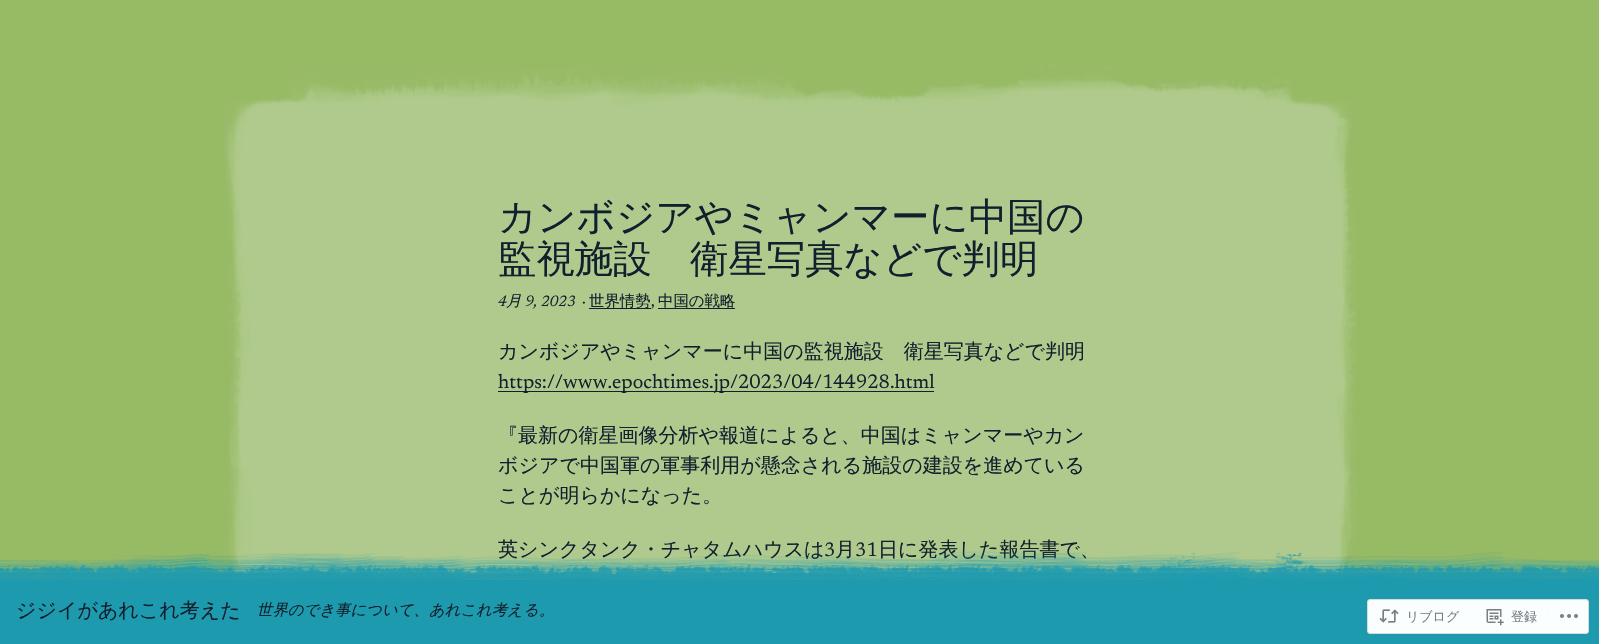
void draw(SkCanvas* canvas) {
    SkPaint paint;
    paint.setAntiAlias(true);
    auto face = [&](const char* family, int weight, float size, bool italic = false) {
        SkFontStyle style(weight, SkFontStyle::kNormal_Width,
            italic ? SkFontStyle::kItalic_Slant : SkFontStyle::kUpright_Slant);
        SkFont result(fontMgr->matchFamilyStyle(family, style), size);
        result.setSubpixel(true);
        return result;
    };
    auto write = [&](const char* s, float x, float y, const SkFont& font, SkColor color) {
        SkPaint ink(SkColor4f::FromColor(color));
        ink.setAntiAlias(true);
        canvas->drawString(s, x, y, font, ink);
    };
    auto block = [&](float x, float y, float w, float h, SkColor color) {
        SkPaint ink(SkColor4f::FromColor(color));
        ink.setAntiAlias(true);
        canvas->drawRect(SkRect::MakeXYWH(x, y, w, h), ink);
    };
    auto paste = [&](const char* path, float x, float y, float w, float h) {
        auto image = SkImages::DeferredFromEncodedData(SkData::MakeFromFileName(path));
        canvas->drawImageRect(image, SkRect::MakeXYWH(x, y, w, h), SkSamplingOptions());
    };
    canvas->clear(SkColorSetRGB(151, 186, 101));
    paste("pic1.png", 224, 62, 1133, 518);
    auto kFont1 = face("WenQuanYi Zen Hei", 500, 38.4f);
    write("カンボジアやミャンマーに中国の", 498, 230, kFont1, SkColorSetRGB(17, 32, 46));
    write("監視施設　衛星写真などで判明", 498, 272, kFont1, SkColorSetRGB(17, 32, 46));
    auto kFont2 = face("Newsreader", 400, 15.4f, true);
    write("4", 498, 306, kFont2, SkColorSetRGB(17, 32, 46));
    auto kFont3 = face("WenQuanYi Zen Hei", 500, 15.4f, true);
    write("月", 506, 306, kFont3, SkColorSetRGB(17, 32, 46));
    write("9, 2023", 525, 306, kFont2, SkColorSetRGB(17, 32, 46));
    auto kFont4 = face("Newsreader", 500, 15.4f);
    write("·", 582, 306, kFont4, SkColorSetRGB(17, 32, 46));
    block(589, 308, 62, 1, SkColorSetRGB(17, 32, 46));
    auto kFont5 = face("WenQuanYi Zen Hei", 500, 15.4f);
    write("世界情勢", 589, 306, kFont5, SkColorSetRGB(17, 32, 46));
    write("中国の戦略", 658, 306, kFont5, SkColorSetRGB(17, 32, 46));
    block(658, 308, 77, 1, SkColorSetRGB(17, 32, 46));
    write(",", 651, 306, kFont4, SkColorSetRGB(17, 32, 46));
    auto kFont6 = face("WenQuanYi Zen Hei", 500, 20);
    write("カンボジアやミャンマーに中国の監視施設　衛星写真などで判明", 498, 358, kFont6, SkColorSetRGB(17, 32, 46));
    block(498, 391, 436, 1, SkColorSetRGB(17, 32, 46));
    auto kFont7 = face("Newsreader", 400, 20);
    write("https://www.epochtimes.jp/2023/04/144928.html", 498, 388, kFont7, SkColorSetRGB(17, 32, 46));
    write("『最新の衛星画像分析や報道によると、中国はミャンマーやカン", 498, 442, kFont6, SkColorSetRGB(17, 32, 46));
    write("ボジアで中国軍の軍事利用が懸念される施設の建設を進めている", 498, 472, kFont6, SkColorSetRGB(17, 32, 46));
    write("ことが明らかになった。", 498, 502, kFont6, SkColorSetRGB(17, 32, 46));
    write("英シンクタンク・チャタムハウスは", 498, 556, kFont6, SkColorSetRGB(17, 32, 46));
    write("3", 824, 556, kFont7, SkColorSetRGB(17, 32, 46));
    write("月", 835, 556, kFont6, SkColorSetRGB(17, 32, 46));
    write("31", 855, 556, kFont7, SkColorSetRGB(17, 32, 46));
    write("日に発表した報告書で、", 878, 556, kFont6, SkColorSetRGB(17, 32, 46));
    block(0, 580, 1599, 64, SkColorSetRGB(30, 154, 174));
    paste("pic2.png", 0, 548, 1599, 32);
    write("ジジイがあれこれ考えた", 16, 617, kFont6, SkColorSetRGB(17, 32, 46));
    write("世界のでき事について、あれこれ考える。", 257, 615, kFont3, SkColorSetRGB(17, 32, 46));
    block(1489, 608, 16, 1, SkColorSetRGB(17, 32, 46));
    block(1489, 615, 16, 2, SkColorSetRGB(17, 32, 46));
    paste("pic3.png", 1544, 605, 16, 15);
    paint.setColor(SkColorSetARGB(250, 255, 255, 255));
    canvas->drawRoundRect(SkRect::MakeXYWH(1367.5f, 599.5f, 221, 34), 2.5f, 2.5f, paint);
    paint.setStyle(SkPaint::kStroke_Style);
    paint.setStrokeWidth(1);
    paint.setColor(SkColorSetRGB(216, 219, 221));
    canvas->drawRoundRect(SkRect::MakeXYWH(1367.5f, 599.5f, 221, 34), 2.5f, 2.5f, paint);
    paste("pic4.png", 1379, 609, 20, 14);
    auto kFont8 = face("WenQuanYi Zen Hei", 500, 13);
    write("リブログ", 1406, 621, kFont8, SkColorSetRGB(118, 125, 131));
    paste("pic5.png", 1486, 609, 18, 17);
    write("登録", 1511, 621, kFont8, SkColorSetRGB(118, 125, 131));
    paste("pic6.png", 1560, 614, 18, 4);
}
